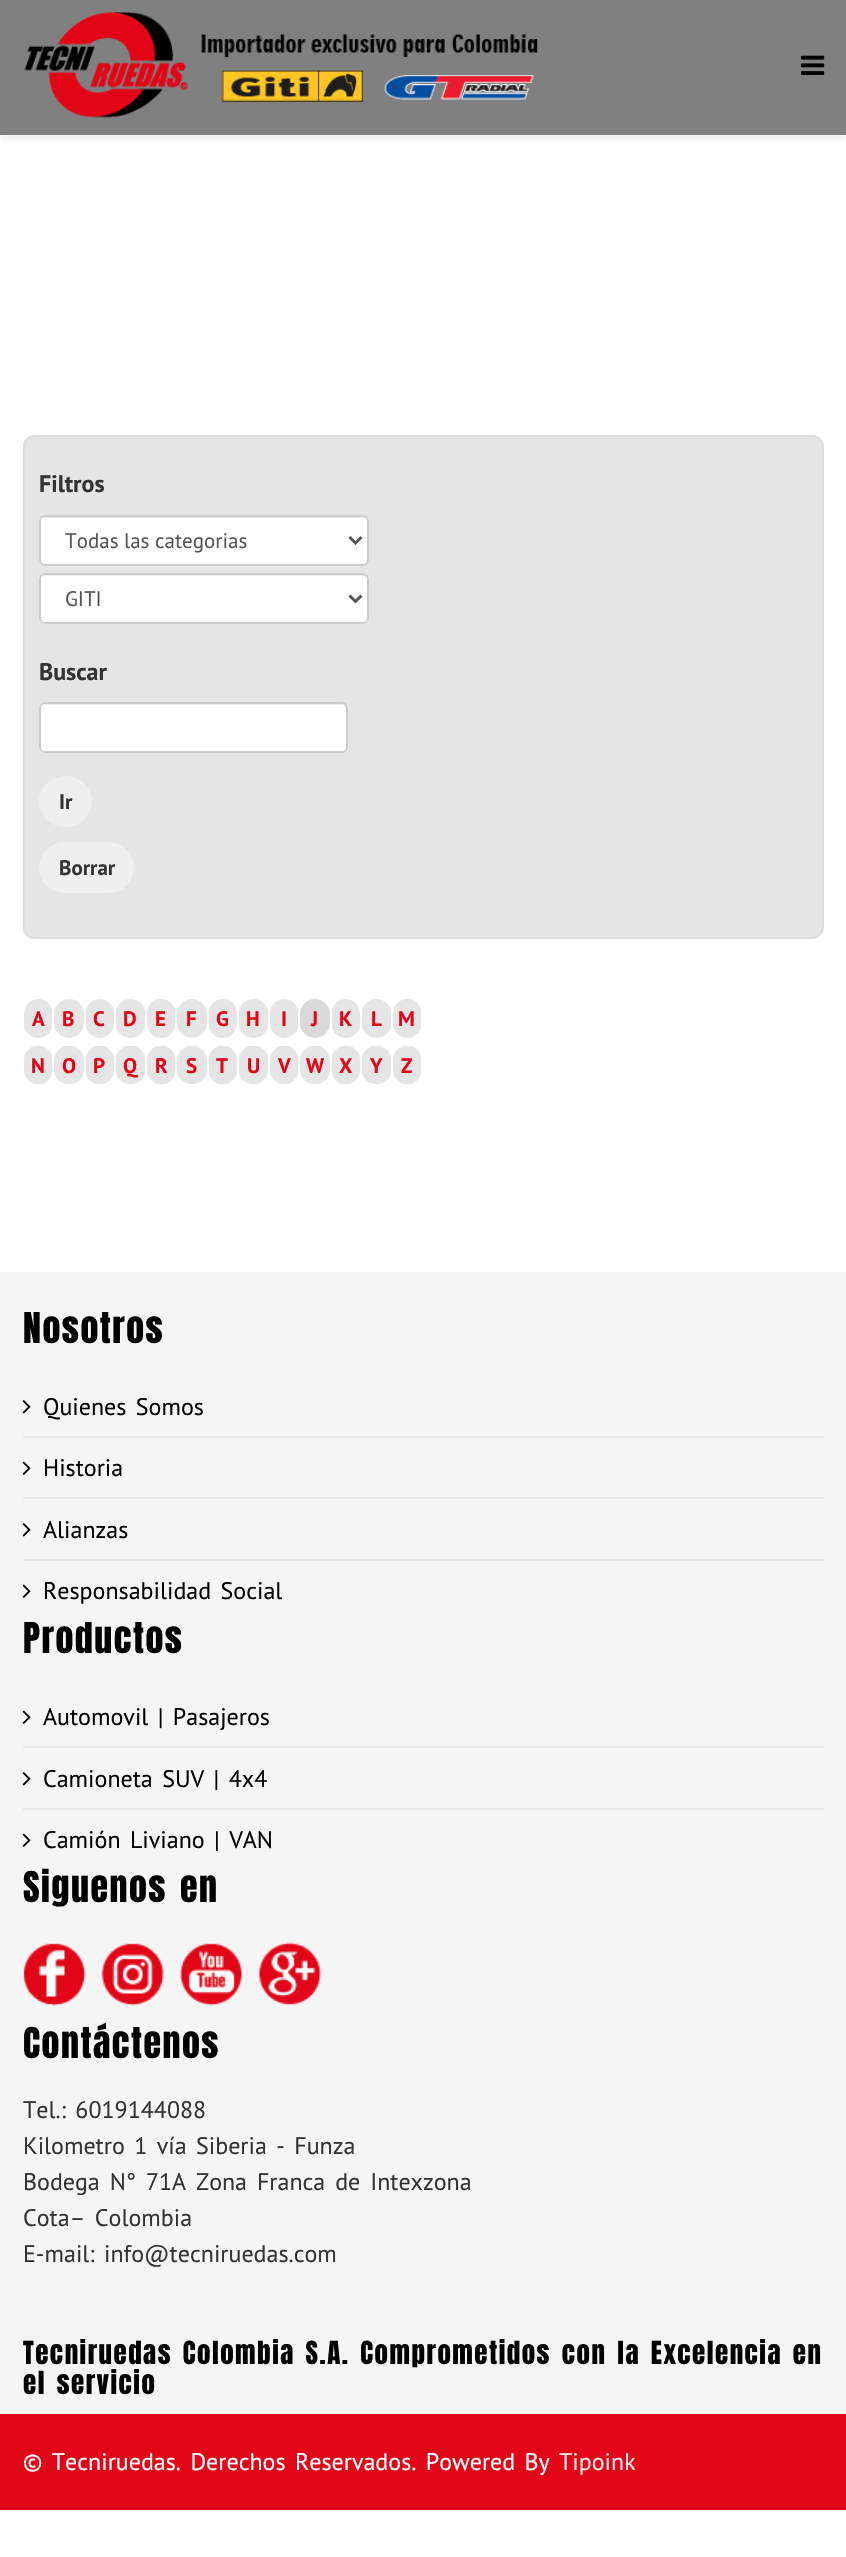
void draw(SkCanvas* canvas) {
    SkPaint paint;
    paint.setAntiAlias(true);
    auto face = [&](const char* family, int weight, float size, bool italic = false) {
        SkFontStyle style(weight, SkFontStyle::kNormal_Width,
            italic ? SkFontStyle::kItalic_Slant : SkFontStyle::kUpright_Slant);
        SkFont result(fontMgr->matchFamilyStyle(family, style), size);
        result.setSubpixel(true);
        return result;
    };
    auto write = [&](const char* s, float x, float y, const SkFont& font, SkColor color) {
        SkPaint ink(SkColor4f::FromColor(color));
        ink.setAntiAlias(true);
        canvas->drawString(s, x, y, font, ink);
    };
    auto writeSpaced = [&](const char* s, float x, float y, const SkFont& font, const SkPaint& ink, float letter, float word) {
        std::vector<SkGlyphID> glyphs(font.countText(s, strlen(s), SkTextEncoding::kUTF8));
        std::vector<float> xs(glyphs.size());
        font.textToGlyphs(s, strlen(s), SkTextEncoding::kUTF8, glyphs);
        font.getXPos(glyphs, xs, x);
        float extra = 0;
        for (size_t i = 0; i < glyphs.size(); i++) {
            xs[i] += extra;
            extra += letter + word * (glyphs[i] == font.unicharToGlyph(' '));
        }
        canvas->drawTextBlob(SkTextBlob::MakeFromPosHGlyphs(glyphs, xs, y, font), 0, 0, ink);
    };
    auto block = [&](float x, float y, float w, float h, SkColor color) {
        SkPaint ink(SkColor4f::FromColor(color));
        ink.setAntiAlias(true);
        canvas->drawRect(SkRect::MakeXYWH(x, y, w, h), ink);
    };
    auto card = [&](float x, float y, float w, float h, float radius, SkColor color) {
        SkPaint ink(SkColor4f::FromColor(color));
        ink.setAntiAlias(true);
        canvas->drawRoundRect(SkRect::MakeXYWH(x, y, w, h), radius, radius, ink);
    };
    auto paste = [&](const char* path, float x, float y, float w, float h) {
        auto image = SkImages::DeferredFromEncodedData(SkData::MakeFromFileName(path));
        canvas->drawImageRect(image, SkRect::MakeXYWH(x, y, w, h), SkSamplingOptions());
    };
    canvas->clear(SK_ColorWHITE);
    paint.setColor(SkColorSetARGB(13, 0, 0, 0));
    paint.setMaskFilter(SkMaskFilter::MakeBlur(kNormal_SkBlurStyle, 2));
    canvas->drawRect(SkRect::MakeXYWH(0, 5, 846, 135), paint);
    paint.setMaskFilter(nullptr);
    block(0, 0, 846, 135, SkColorSetRGB(128, 128, 128));
    paste("pic1.png", 24, 12, 514, 106);
    paste("pic2.png", 801, 55, 24, 20);
    paste("pic3.png", 22, 435, 802, 504);
    paint.setStyle(SkPaint::kStroke_Style);
    paint.setStrokeWidth(2);
    paint.setColor(SkColorSetRGB(221, 221, 221));
    canvas->drawRoundRect(SkRect::MakeXYWH(24, 436, 799, 502), 11, 11, paint);
    auto kFont1 = face("PT Sans", 700, 24);
    write("Filtros", 39, 492, kFont1, SkColorSetRGB(51, 51, 51));
    card(39, 515, 330, 51, 6, SK_ColorWHITE);
    paint.setStyle(SkPaint::kFill_Style);
    paint.setColor(SkColorSetRGB(236, 236, 236));
    canvas->drawPath(SkPathBuilder().moveTo(45, 518).lineTo(363, 518).cubicTo(365, 518, 368, 520, 368, 522).lineTo(368, 521).cubicTo(368, 518, 366, 516, 363, 516).lineTo(46, 516).cubicTo(44, 516, 42, 518, 41, 520).cubicTo(42, 519, 44, 518, 45, 518).close().detach(), paint);
    paint.setStyle(SkPaint::kStroke_Style);
    paint.setColor(SkColorSetRGB(204, 204, 204));
    canvas->drawRoundRect(SkRect::MakeXYWH(40, 516, 328, 49), 5, 5, paint);
    paint.setStrokeWidth(3);
    paint.setColor(SkColorSetRGB(85, 85, 85));
    canvas->drawPath(SkPathBuilder().moveTo(349.5f, 537).lineTo(355.5f, 543).lineTo(361.5f, 537).detach(), paint);
    auto kFont2 = face("PT Sans", 400, 21);
    write("Todas las categorias", 65, 548, kFont2, SkColorSetRGB(85, 85, 85));
    card(39, 573, 330, 51, 6, SK_ColorWHITE);
    paint.setStyle(SkPaint::kFill_Style);
    paint.setColor(SkColorSetRGB(236, 236, 236));
    canvas->drawPath(SkPathBuilder().moveTo(45, 576).lineTo(363, 576).cubicTo(365, 576, 368, 578, 368, 580).cubicTo(368, 577, 366, 575, 363, 575).lineTo(46, 575).cubicTo(44, 575, 43, 576, 42, 577).close().detach(), paint);
    paint.setStyle(SkPaint::kStroke_Style);
    paint.setStrokeWidth(2);
    paint.setColor(SkColorSetRGB(204, 204, 204));
    canvas->drawRoundRect(SkRect::MakeXYWH(40, 574, 328, 49), 5, 5, paint);
    paint.setStrokeWidth(3);
    paint.setColor(SkColorSetRGB(85, 85, 85));
    canvas->drawPath(SkPathBuilder().moveTo(349.5f, 595.5f).lineTo(355.5f, 601.5f).lineTo(361.5f, 595.5f).detach(), paint);
    write("GITI", 65, 606, kFont2, SkColorSetRGB(85, 85, 85));
    write("Buscar", 39, 680, kFont1, SkColorSetRGB(51, 51, 51));
    card(39, 702, 309, 51, 6, SK_ColorWHITE);
    paint.setStyle(SkPaint::kFill_Style);
    paint.setColor(SkColorSetRGB(236, 236, 236));
    canvas->drawPath(SkPathBuilder().moveTo(45, 705).lineTo(342, 705).cubicTo(344, 705, 346, 707, 346, 710).lineTo(346, 748).lineTo(345, 751).cubicTo(346, 750, 347, 748, 347, 747).lineTo(347, 709).cubicTo(347, 706, 345, 704, 342, 704).lineTo(46, 704).cubicTo(44, 704, 43, 705, 42, 706).close().detach(), paint);
    paint.setStyle(SkPaint::kStroke_Style);
    paint.setStrokeWidth(2);
    paint.setColor(SkColorSetRGB(204, 204, 204));
    canvas->drawRoundRect(SkRect::MakeXYWH(40, 703, 307, 49), 5, 5, paint);
    card(39, 776, 53, 51, 25.5f, SkColorSetRGB(239, 239, 239));
    auto kFont3 = face("PT Sans", 700, 21);
    write("Ir", 59, 809, kFont3, SkColorSetRGB(51, 51, 51));
    card(39, 842, 95, 51, 25.5f, SkColorSetRGB(239, 239, 239));
    write("Borrar", 59, 875, kFont3, SkColorSetRGB(51, 51, 51));
    paste("pic4.png", 24, 999, 28, 39);
    write("A", 32, 1026, kFont3, SkColorSetRGB(226, 5, 23));
    paste("pic5.png", 54, 999, 30, 39);
    write("B", 62, 1026, kFont3, SkColorSetRGB(226, 5, 23));
    paste("pic6.png", 86, 999, 28, 39);
    write("C", 93, 1026, kFont3, SkColorSetRGB(226, 5, 23));
    paste("pic7.png", 116, 999, 29, 39);
    write("D", 123, 1026, kFont3, SkColorSetRGB(226, 5, 23));
    paste("pic4.png", 147, 999, 28, 39);
    write("E", 155, 1026, kFont3, SkColorSetRGB(226, 5, 23));
    paste("pic5.png", 177, 999, 30, 39);
    write("F", 186, 1026, kFont3, SkColorSetRGB(226, 5, 23));
    paste("pic6.png", 209, 999, 28, 39);
    write("G", 216, 1026, kFont3, SkColorSetRGB(226, 5, 23));
    paste("pic8.png", 239, 999, 29, 39);
    write("H", 246, 1026, kFont3, SkColorSetRGB(226, 5, 23));
    paste("pic4.png", 270, 999, 28, 39);
    write("I", 281, 1026, kFont3, SkColorSetRGB(226, 5, 23));
    paste("pic9.png", 300, 999, 30, 39);
    write("J", 311, 1026, kFont3, SkColorSetRGB(226, 5, 23));
    paste("pic6.png", 332, 999, 28, 39);
    write("K", 339, 1026, kFont3, SkColorSetRGB(226, 5, 23));
    paste("pic7.png", 362, 999, 29, 39);
    write("L", 371, 1026, kFont3, SkColorSetRGB(226, 5, 23));
    paste("pic4.png", 393, 999, 28, 39);
    write("M", 398, 1026, kFont3, SkColorSetRGB(226, 5, 23));
    paste("pic10.png", 24, 1046, 28, 39);
    write("N", 31, 1073, kFont3, SkColorSetRGB(226, 5, 23));
    paste("pic11.png", 54, 1046, 30, 38);
    write("O", 62, 1073, kFont3, SkColorSetRGB(226, 5, 23));
    paste("pic12.png", 86, 1046, 28, 39);
    write("P", 93, 1073, kFont3, SkColorSetRGB(226, 5, 23));
    paste("pic13.png", 116, 1046, 29, 39);
    write("Q", 123, 1073, kFont3, SkColorSetRGB(226, 5, 23));
    paste("pic10.png", 147, 1046, 28, 39);
    write("R", 155, 1073, kFont3, SkColorSetRGB(226, 5, 23));
    paste("pic14.png", 177, 1046, 30, 38);
    write("S", 186, 1073, kFont3, SkColorSetRGB(226, 5, 23));
    paste("pic12.png", 209, 1046, 28, 39);
    write("T", 216, 1073, kFont3, SkColorSetRGB(226, 5, 23));
    paste("pic15.png", 239, 1046, 29, 39);
    write("U", 247, 1073, kFont3, SkColorSetRGB(226, 5, 23));
    paste("pic10.png", 270, 1046, 28, 39);
    write("V", 278, 1073, kFont3, SkColorSetRGB(226, 5, 23));
    paste("pic14.png", 300, 1046, 30, 38);
    write("W", 306, 1073, kFont3, SkColorSetRGB(226, 5, 23));
    paste("pic16.png", 332, 1046, 28, 39);
    write("X", 339, 1073, kFont3, SkColorSetRGB(226, 5, 23));
    paste("pic13.png", 362, 1046, 29, 39);
    write("Y", 370, 1073, kFont3, SkColorSetRGB(226, 5, 23));
    paste("pic10.png", 393, 1046, 28, 39);
    write("Z", 401, 1073, kFont3, SkColorSetRGB(226, 5, 23));
    block(0, 1272, 846, 1142, SkColorSetRGB(245, 245, 245));
    auto kFont4 = face("Anton", 400, 36);
    paint.setStyle(SkPaint::kFill_Style);
    paint.setColor(SK_ColorBLACK);
    writeSpaced("Nosotros", 23, 1343, kFont4, paint, 1.5f, 0);
    block(23, 1436, 801, 2, SkColorSetRGB(232, 232, 232));
    paste("pic17.png", 22, 1400, 9, 14);
    auto kFont5 = face("PT Sans", 400, 24);
    writeSpaced("Quienes Somos", 43, 1415, kFont5, paint, 0, 3);
    block(23, 1497, 801, 2, SkColorSetRGB(232, 232, 232));
    paste("pic18.png", 22, 1461, 9, 14);
    write("Historia", 43, 1476, kFont5, SK_ColorBLACK);
    block(23, 1559, 801, 2, SkColorSetRGB(232, 232, 232));
    paste("pic17.png", 22, 1523, 9, 14);
    write("Alianzas", 43, 1538, kFont5, SK_ColorBLACK);
    paste("pic18.png", 22, 1584, 9, 14);
    writeSpaced("Responsabilidad Social", 43, 1599, kFont5, paint, 0, 3);
    writeSpaced("Productos", 23, 1653, kFont4, paint, 1.5f, 0);
    block(23, 1746, 801, 2, SkColorSetRGB(232, 232, 232));
    paste("pic18.png", 22, 1710, 9, 14);
    writeSpaced("Automovil | Pasajeros", 43, 1725, kFont5, paint, 0, 3);
    block(23, 1808, 801, 2, SkColorSetRGB(232, 232, 232));
    paste("pic17.png", 22, 1772, 9, 14);
    writeSpaced("Camioneta SUV | 4x4", 43, 1787, kFont5, paint, 0, 3);
    paste("pic18.png", 22, 1833, 9, 14);
    writeSpaced("Camión Liviano | VAN", 43, 1848, kFont5, paint, 0, 3);
    writeSpaced("Siguenos en", 23, 1902, kFont4, paint, 1.5f, 3);
    paste("pic19.png", 23, 1942, 299, 64);
    writeSpaced("Contáctenos", 23, 2058, kFont4, paint, 1.5f, 0);
    paint.setColor(SkColorSetRGB(51, 51, 51));
    writeSpaced("Tel.: 6019144088", 23, 2118, kFont5, paint, 0, 3);
    writeSpaced("Kilometro 1 vía Siberia - Funza", 23, 2154, kFont5, paint, 0, 3);
    writeSpaced("Bodega N° 71A Zona Franca de Intexzona", 23, 2190, kFont5, paint, 0, 3.5f);
    writeSpaced("Cota– Colombia", 23, 2226, kFont5, paint, 0, 3);
    writeSpaced("E-mail: info@tecniruedas.com", 23, 2262, kFont5, paint, 0, 3);
    auto kFont6 = face("Anton", 400, 27);
    paint.setColor(SK_ColorBLACK);
    writeSpaced("Tecniruedas Colombia S.A. Comprometidos con la Excelencia en", 23, 2364, kFont6, paint, 1.5f, 3);
    writeSpaced("el servicio", 23, 2394, kFont6, paint, 1.5f, 3);
    block(0, 2414, 846, 96, SkColorSetRGB(226, 5, 23));
    paint.setColor(SK_ColorWHITE);
    writeSpaced("© Tecniruedas. Derechos Reservados. Powered By", 23, 2470, kFont5, paint, 0, 3);
    write("Tipoink", 559, 2470, kFont5, SkColorSetRGB(252, 230, 232));
}
